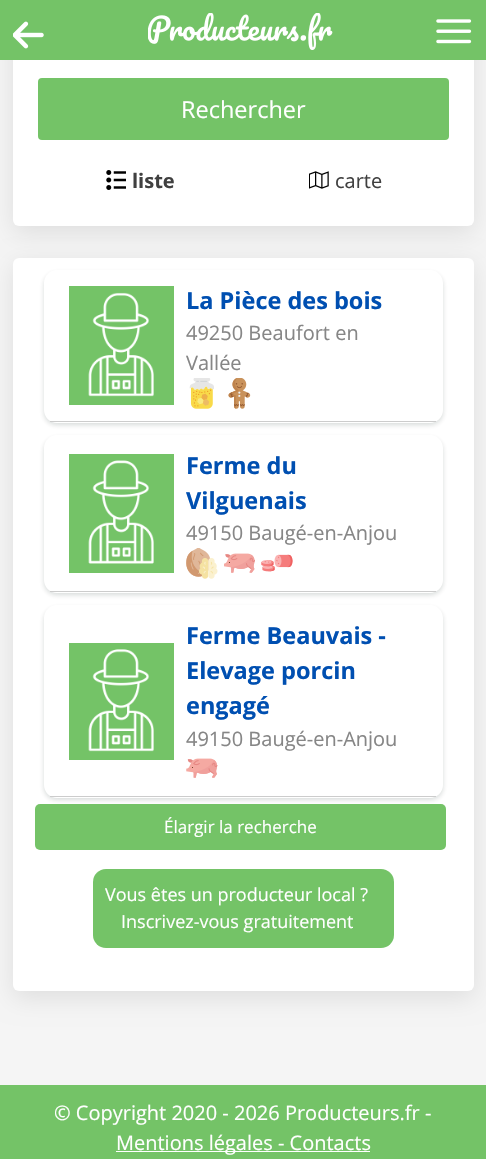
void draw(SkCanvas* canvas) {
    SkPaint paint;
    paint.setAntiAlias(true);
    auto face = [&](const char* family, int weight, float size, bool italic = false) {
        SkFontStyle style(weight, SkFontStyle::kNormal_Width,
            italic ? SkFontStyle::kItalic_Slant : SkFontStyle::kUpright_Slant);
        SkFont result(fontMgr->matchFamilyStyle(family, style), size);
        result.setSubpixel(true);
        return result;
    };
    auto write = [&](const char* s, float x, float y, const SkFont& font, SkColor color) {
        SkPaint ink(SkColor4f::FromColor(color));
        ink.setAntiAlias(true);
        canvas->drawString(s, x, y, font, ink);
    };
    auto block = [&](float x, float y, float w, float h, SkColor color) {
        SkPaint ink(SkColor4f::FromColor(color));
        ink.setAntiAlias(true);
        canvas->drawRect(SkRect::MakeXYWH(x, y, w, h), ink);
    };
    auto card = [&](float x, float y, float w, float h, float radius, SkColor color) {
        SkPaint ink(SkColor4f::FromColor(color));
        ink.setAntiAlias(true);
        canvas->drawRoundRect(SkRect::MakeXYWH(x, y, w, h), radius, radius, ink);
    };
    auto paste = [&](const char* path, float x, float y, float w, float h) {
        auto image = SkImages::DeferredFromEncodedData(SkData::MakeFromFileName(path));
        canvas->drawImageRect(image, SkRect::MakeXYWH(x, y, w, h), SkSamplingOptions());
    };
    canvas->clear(SkColorSetRGB(245, 245, 245));
    paint.setColor(SkColorSetRGB(222, 222, 222));
    paint.setMaskFilter(SkMaskFilter::MakeBlur(kNormal_SkBlurStyle, 12.5f));
    canvas->drawRoundRect(SkRect::MakeXYWH(13, -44, 461, 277), 6, 6, paint);
    paint.setMaskFilter(nullptr);
    card(13, -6, 461, 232, 6, SK_ColorWHITE);
    block(0, 0, 486, 60, SkColorSetRGB(116, 195, 103));
    paste("pic1.png", 13, 21, 31, 28);
    paste("pic2.png", 148, 13, 185, 37);
    paste("pic3.png", 436, 19, 36, 25);
    card(38, 78, 411, 62, 4, SkColorSetRGB(116, 195, 103));
    auto kFont1 = face("Open Sans", 400, 23.5f);
    write("Rechercher", 181, 118, kFont1, SK_ColorWHITE);
    paste("pic4.png", 106, 170, 20, 20);
    auto kFont2 = face("Open Sans", 700, 20);
    write("liste", 132, 188, kFont2, SkColorSetRGB(64, 64, 64));
    paste("pic5.png", 309, 171, 20, 18);
    auto kFont3 = face("Open Sans", 400, 20);
    write("carte", 335, 188, kFont3, SkColorSetRGB(64, 64, 64));
    paint.setMaskFilter(SkMaskFilter::MakeBlur(kNormal_SkBlurStyle, 12.5f));
    canvas->drawRoundRect(SkRect::MakeXYWH(13, 264, 461, 734), 6, 6, paint);
    paint.setMaskFilter(nullptr);
    card(13, 258, 461, 733, 6, SK_ColorWHITE);
    canvas->save();
    canvas->clipPath(SkPathBuilder(SkPathFillType::kEvenOdd).moveTo(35, 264).lineTo(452, 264).lineTo(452, 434).lineTo(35, 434).close().moveTo(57, 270).lineTo(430, 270).cubicTo(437, 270, 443, 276, 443, 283).lineTo(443, 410).cubicTo(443, 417, 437, 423, 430, 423).lineTo(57, 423).cubicTo(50, 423, 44, 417, 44, 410).lineTo(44, 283).cubicTo(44, 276, 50, 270, 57, 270).close().detach(), true);
    paint.setColor(SkColorSetARGB(41, 6, 31, 24));
    paint.setMaskFilter(SkMaskFilter::MakeBlur(kNormal_SkBlurStyle, 2.5f));
    canvas->drawRoundRect(SkRect::MakeXYWH(44, 273, 399, 152), 13, 13, paint);
    paint.setMaskFilter(nullptr);
    canvas->restore();
    block(50, 421, 386, 1, SkColorSetRGB(204, 204, 204));
    block(69, 286, 105, 119, SkColorSetRGB(116, 195, 103));
    paste("pic6.png", 88, 292, 66, 105);
    auto kFont4 = face("Open Sans", 700, 23.5f);
    write("La Pièce des bois", 186, 309, kFont4, SkColorSetRGB(0, 79, 177));
    write("49250 Beaufort en", 186, 340, kFont3, SkColorSetRGB(134, 134, 134));
    write("Vallée", 186, 370, kFont3, SkColorSetRGB(134, 134, 134));
    paste("pic7.png", 189, 378, 25, 31);
    paste("pic8.png", 228, 378, 23, 31);
    canvas->save();
    canvas->clipPath(SkPathBuilder(SkPathFillType::kEvenOdd).moveTo(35, 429).lineTo(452, 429).lineTo(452, 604).lineTo(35, 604).close().moveTo(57, 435).lineTo(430, 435).cubicTo(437, 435, 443, 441, 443, 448).lineTo(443, 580).cubicTo(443, 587, 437, 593, 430, 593).lineTo(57, 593).cubicTo(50, 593, 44, 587, 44, 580).lineTo(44, 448).cubicTo(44, 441, 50, 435, 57, 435).close().detach(), true);
    paint.setMaskFilter(SkMaskFilter::MakeBlur(kNormal_SkBlurStyle, 2.5f));
    canvas->drawRoundRect(SkRect::MakeXYWH(44, 438, 399, 157), 13, 13, paint);
    paint.setMaskFilter(nullptr);
    canvas->restore();
    block(50, 591, 386, 1, SkColorSetRGB(204, 204, 204));
    block(69, 454, 105, 119, SkColorSetRGB(116, 195, 103));
    paste("pic9.png", 88, 460, 66, 104);
    write("Ferme du", 186, 474, kFont4, SkColorSetRGB(0, 79, 177));
    write("Vilguenais", 186, 509, kFont4, SkColorSetRGB(0, 79, 177));
    write("49150 Baugé-en-Anjou", 186, 540, kFont3, SkColorSetRGB(134, 134, 134));
    paste("pic10.png", 186, 548, 32, 31);
    paste("pic11.png", 224, 553, 31, 20);
    paste("pic12.png", 261, 554, 32, 18);
    canvas->save();
    canvas->clipPath(SkPathBuilder(SkPathFillType::kEvenOdd).moveTo(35, 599).lineTo(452, 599).lineTo(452, 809).lineTo(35, 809).close().moveTo(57, 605).lineTo(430, 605).cubicTo(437, 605, 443, 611, 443, 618).lineTo(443, 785).cubicTo(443, 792, 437, 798, 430, 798).lineTo(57, 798).cubicTo(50, 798, 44, 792, 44, 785).lineTo(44, 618).cubicTo(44, 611, 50, 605, 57, 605).close().detach(), true);
    paint.setMaskFilter(SkMaskFilter::MakeBlur(kNormal_SkBlurStyle, 2.5f));
    canvas->drawRoundRect(SkRect::MakeXYWH(44, 608, 399, 192), 13, 13, paint);
    paint.setMaskFilter(nullptr);
    canvas->restore();
    block(50, 796, 386, 1, SkColorSetRGB(204, 204, 204));
    block(69, 643, 105, 117, SkColorSetRGB(116, 195, 103));
    paste("pic13.png", 88, 649, 66, 103);
    write("Ferme Beauvais -", 186, 644, kFont4, SkColorSetRGB(0, 79, 177));
    write("Elevage porcin", 186, 679, kFont4, SkColorSetRGB(0, 79, 177));
    write("engagé", 186, 714, kFont4, SkColorSetRGB(0, 79, 177));
    write("49150 Baugé-en-Anjou", 186, 746, kFont3, SkColorSetRGB(134, 134, 134));
    paste("pic14.png", 186, 758, 32, 20);
    card(35, 804, 411, 46, 5, SkColorSetRGB(116, 195, 103));
    auto kFont5 = face("Open Sans", 400, 17);
    write("Élargir la recherche", 164, 833, kFont5, SK_ColorWHITE);
    card(93, 869, 301, 79, 13, SkColorSetRGB(116, 195, 103));
    auto kFont6 = face("Open Sans", 400, 18);
    write("Vous êtes un producteur local ?", 105, 901, kFont6, SK_ColorWHITE);
    write("Inscrivez-vous gratuitement", 121, 928, kFont6, SK_ColorWHITE);
    block(0, 1085, 486, 74, SkColorSetRGB(116, 195, 103));
    write("© Copyright 2020 - 2026 Producteurs.fr -", 54, 1120, kFont3, SK_ColorWHITE);
    block(116, 1151, 254, 1, SK_ColorWHITE);
    write("Mentions légales - Contacts", 116, 1150, kFont3, SK_ColorWHITE);
}
